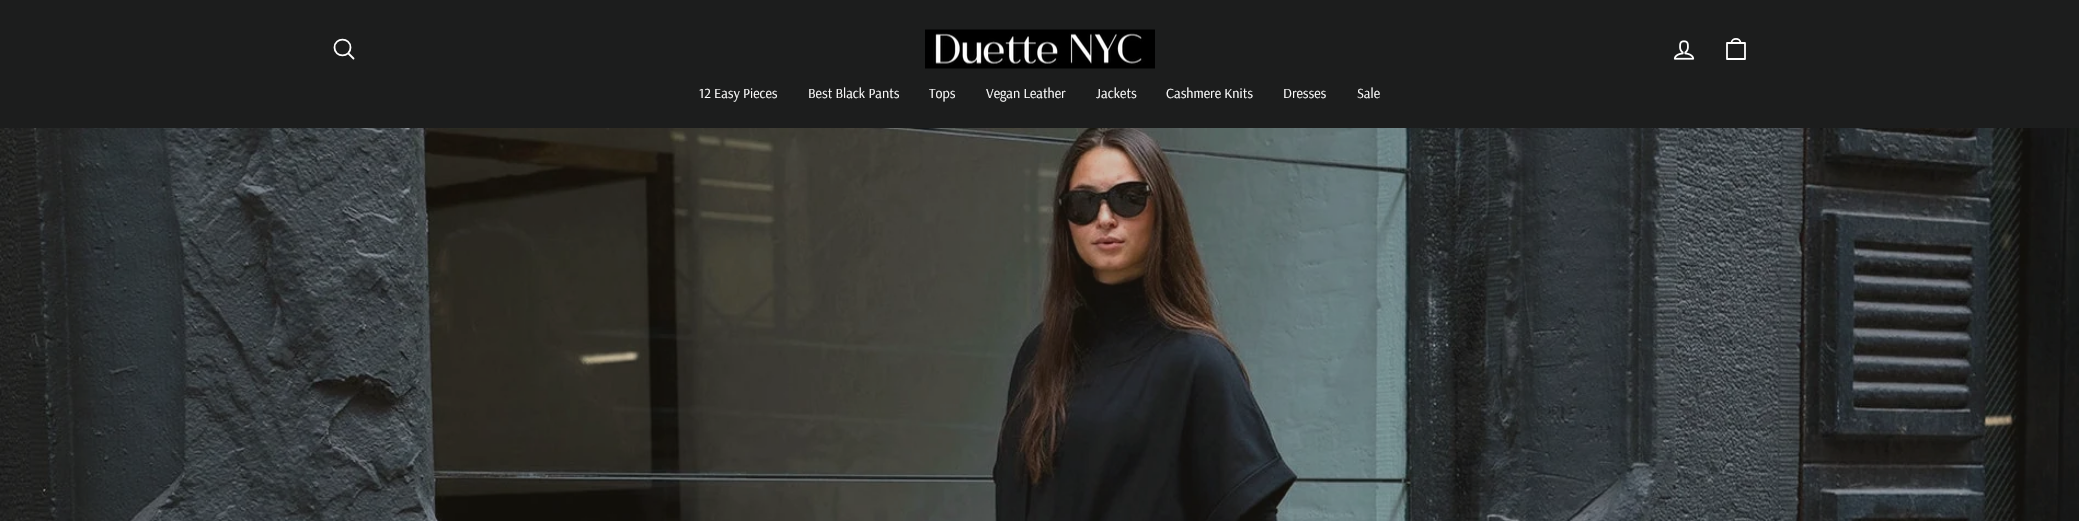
void draw(SkCanvas* canvas) {
    SkPaint paint;
    paint.setAntiAlias(true);
    auto face = [&](const char* family, int weight, float size, bool italic = false) {
        SkFontStyle style(weight, SkFontStyle::kNormal_Width,
            italic ? SkFontStyle::kItalic_Slant : SkFontStyle::kUpright_Slant);
        SkFont result(fontMgr->matchFamilyStyle(family, style), size);
        result.setSubpixel(true);
        return result;
    };
    auto write = [&](const char* s, float x, float y, const SkFont& font, SkColor color) {
        SkPaint ink(SkColor4f::FromColor(color));
        ink.setAntiAlias(true);
        canvas->drawString(s, x, y, font, ink);
    };
    auto block = [&](float x, float y, float w, float h, SkColor color) {
        SkPaint ink(SkColor4f::FromColor(color));
        ink.setAntiAlias(true);
        canvas->drawRect(SkRect::MakeXYWH(x, y, w, h), ink);
    };
    auto paste = [&](const char* path, float x, float y, float w, float h) {
        auto image = SkImages::DeferredFromEncodedData(SkData::MakeFromFileName(path));
        canvas->drawImageRect(image, SkRect::MakeXYWH(x, y, w, h), SkSamplingOptions());
    };
    canvas->clear(SK_ColorWHITE);
    block(0, 0, 2079, 128, SkColorSetRGB(28, 29, 29));
    paint.setStyle(SkPaint::kStroke_Style);
    paint.setStrokeWidth(1.8f);
    paint.setStrokeCap(SkPaint::kRound_Cap);
    paint.setStrokeJoin(SkPaint::kRound_Join);
    paint.setColor(SK_ColorWHITE);
    canvas->drawPath(SkPathBuilder().moveTo(350.5f, 47.5f).cubicTo(350.5f, 58, 334.5f, 58, 334.5f, 47.5f).cubicTo(334.5f, 37, 350.5f, 37, 350.5f, 47.5f).close().moveTo(353.5f, 58.5f).lineTo(348.5f, 53.5f).detach(), paint);
    paste("pic1.png", 925, 29, 230, 40);
    paste("pic2.png", 1673, 40, 22, 20);
    canvas->drawPath(SkPathBuilder().moveTo(1727, 43).lineTo(1745, 43).lineTo(1745, 59).lineTo(1727, 59).close().moveTo(1731.5f, 43).cubicTo(1731.5f, 37.5f, 1740.5f, 37.5f, 1740.5f, 43).detach(), paint);
    auto kFont1 = face("Arsenal", 400, 14);
    write("12 Easy Pieces", 699, 98, kFont1, SK_ColorWHITE);
    write("Best Black Pants", 808, 98, kFont1, SK_ColorWHITE);
    write("Tops", 929, 98, kFont1, SK_ColorWHITE);
    write("Vegan Leather", 986, 98, kFont1, SK_ColorWHITE);
    write("Jackets", 1096, 98, kFont1, SK_ColorWHITE);
    write("Cashmere Knits", 1166, 98, kFont1, SK_ColorWHITE);
    write("Dresses", 1283, 98, kFont1, SK_ColorWHITE);
    write("Sale", 1357, 98, kFont1, SK_ColorWHITE);
    paste("pic3.png", 0, 128, 2079, 393);
}
